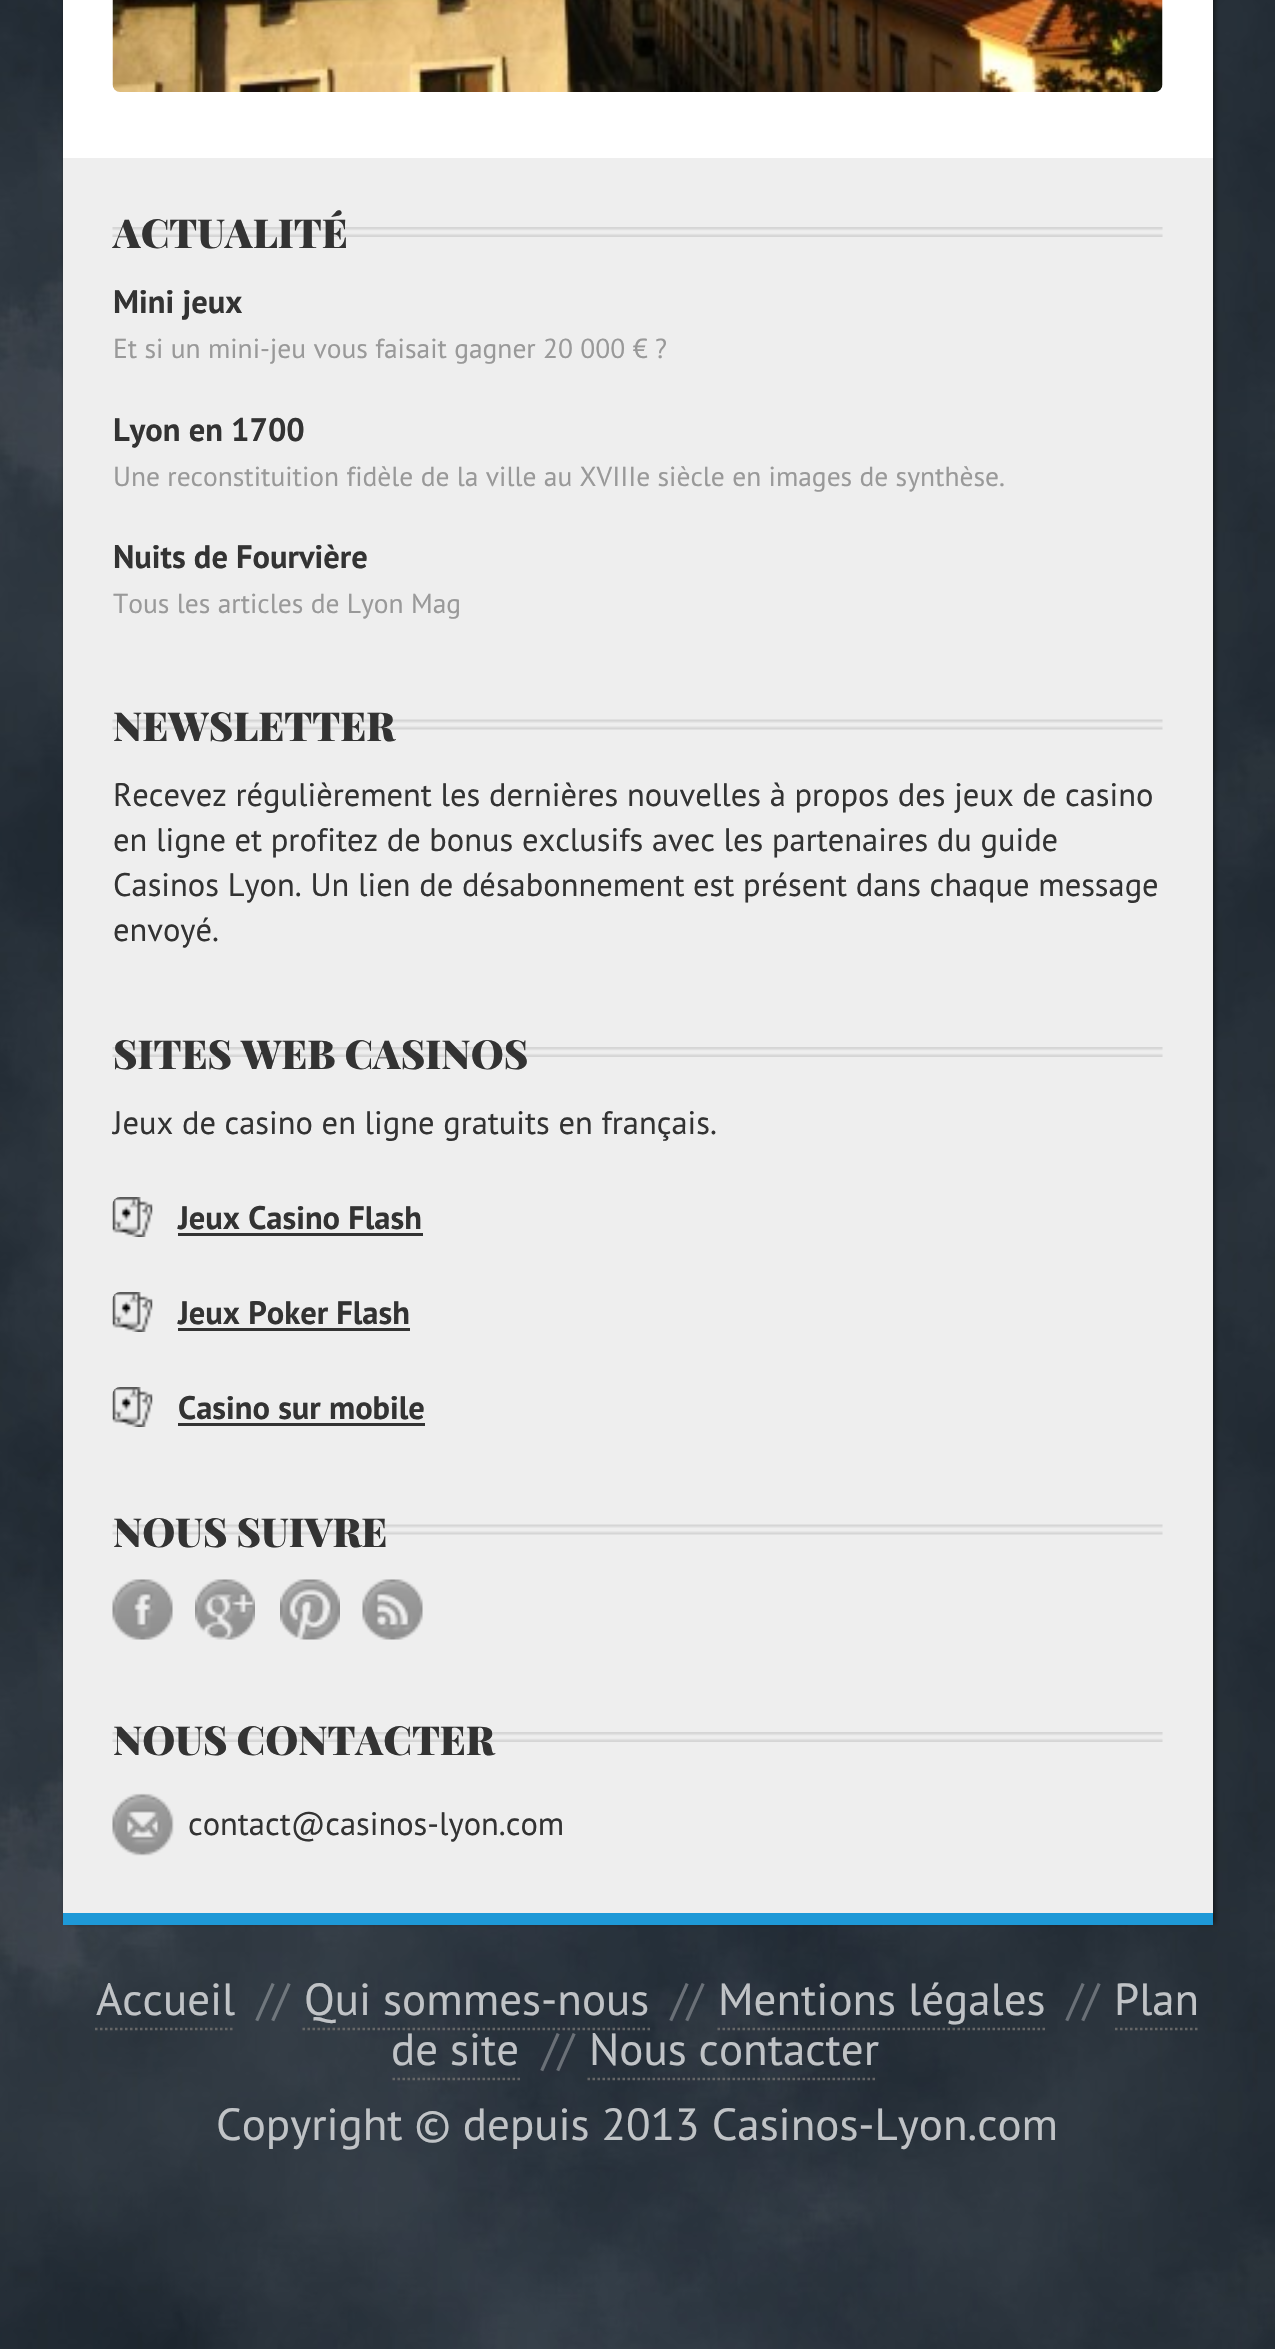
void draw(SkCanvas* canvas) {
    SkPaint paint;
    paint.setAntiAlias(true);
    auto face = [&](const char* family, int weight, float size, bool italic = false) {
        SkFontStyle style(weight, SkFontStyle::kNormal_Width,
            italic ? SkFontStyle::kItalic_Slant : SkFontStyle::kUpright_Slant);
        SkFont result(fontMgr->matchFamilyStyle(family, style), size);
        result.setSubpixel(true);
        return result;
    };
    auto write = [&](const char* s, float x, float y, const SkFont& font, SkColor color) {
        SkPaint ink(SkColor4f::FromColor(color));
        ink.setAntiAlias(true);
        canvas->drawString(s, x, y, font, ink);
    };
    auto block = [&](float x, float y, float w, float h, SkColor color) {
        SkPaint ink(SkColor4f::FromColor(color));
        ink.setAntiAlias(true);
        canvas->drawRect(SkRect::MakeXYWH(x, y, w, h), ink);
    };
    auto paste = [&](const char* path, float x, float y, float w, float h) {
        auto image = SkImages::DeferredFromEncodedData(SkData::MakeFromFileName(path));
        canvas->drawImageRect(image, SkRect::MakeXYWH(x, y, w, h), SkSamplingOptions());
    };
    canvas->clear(SK_ColorWHITE);
    paste("pic1.png", 0, 0, 1275, 2349);
    paint.setColor(SkColorSetARGB(128, 0, 0, 0));
    paint.setMaskFilter(SkMaskFilter::MakeBlur(kNormal_SkBlurStyle, 2.5f));
    canvas->drawRect(SkRect::MakeXYWH(65, -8, 1150, 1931), paint);
    paint.setMaskFilter(nullptr);
    block(63, 0, 1150, 158, SK_ColorWHITE);
    paste("pic2.png", 112, 0, 1051, 92);
    block(63, 158, 1150, 1755, SkColorSetRGB(238, 238, 238));
    block(63, 1913, 1150, 12, SkColorSetRGB(30, 153, 215));
    paste("pic3.png", 112, 227, 1051, 10);
    auto kFont1 = face("Playfair Display", 900, 40);
    write("ACTUALITÉ", 113, 248, kFont1, SkColorSetRGB(51, 51, 51));
    auto kFont2 = face("PT Sans", 700, 32.5f);
    write("Mini jeux", 113, 313, kFont2, SkColorSetRGB(51, 51, 51));
    auto kFont3 = face("PT Sans", 400, 27.5f);
    write("Et si un mini-jeu vous faisait gagner 20 000 € ?", 113, 358, kFont3, SkColorSetRGB(153, 153, 153));
    write("Lyon en 1700", 113, 441, kFont2, SkColorSetRGB(51, 51, 51));
    write("Une reconstituition fidèle de la ville au XVIIIe siècle en images de synthèse.", 113, 486, kFont3, SkColorSetRGB(153, 153, 153));
    write("Nuits de Fourvière", 113, 568, kFont2, SkColorSetRGB(51, 51, 51));
    write("Tous les articles de Lyon Mag", 113, 613, kFont3, SkColorSetRGB(153, 153, 153));
    paste("pic4.png", 112, 719, 1051, 11);
    write("NEWSLETTER", 113, 741, kFont1, SkColorSetRGB(51, 51, 51));
    auto kFont4 = face("PT Sans", 400, 32.5f);
    write("Recevez régulièrement les dernières nouvelles à propos des jeux de casino", 113, 806, kFont4, SkColorSetRGB(51, 51, 51));
    write("en ligne et profitez de bonus exclusifs avec les partenaires du guide", 113, 851, kFont4, SkColorSetRGB(51, 51, 51));
    write("Casinos Lyon. Un lien de désabonnement est présent dans chaque message", 113, 896, kFont4, SkColorSetRGB(51, 51, 51));
    write("envoyé.", 113, 941, kFont4, SkColorSetRGB(51, 51, 51));
    paste("pic3.png", 112, 1047, 1051, 10);
    write("SITES WEB CASINOS", 113, 1069, kFont1, SkColorSetRGB(51, 51, 51));
    write("Jeux de casino en ligne gratuits en français.", 113, 1134, kFont4, SkColorSetRGB(51, 51, 51));
    paste("pic5.png", 112, 1197, 41, 40);
    write("Jeux Casino Flash", 178, 1229, kFont2, SkColorSetRGB(51, 51, 51));
    block(178, 1233, 245, 3, SkColorSetRGB(51, 51, 51));
    paste("pic6.png", 112, 1292, 41, 40);
    write("Jeux Poker Flash", 178, 1324, kFont2, SkColorSetRGB(51, 51, 51));
    block(178, 1328, 232, 3, SkColorSetRGB(51, 51, 51));
    paste("pic7.png", 112, 1387, 41, 40);
    write("Casino sur mobile", 178, 1419, kFont2, SkColorSetRGB(51, 51, 51));
    block(178, 1423, 247, 3, SkColorSetRGB(51, 51, 51));
    paste("pic4.png", 112, 1524, 1051, 11);
    write("NOUS SUIVRE", 113, 1547, kFont1, SkColorSetRGB(51, 51, 51));
    paste("pic8.png", 112, 1579, 61, 61);
    paste("pic9.png", 195, 1579, 60, 61);
    paste("pic10.png", 280, 1579, 60, 61);
    paste("pic11.png", 362, 1579, 61, 61);
    paste("pic3.png", 112, 1732, 1051, 10);
    write("NOUS CONTACTER", 113, 1755, kFont1, SkColorSetRGB(51, 51, 51));
    paste("pic12.png", 112, 1793, 62, 63);
    write("contact@casinos-lyon.com", 188, 1835, kFont4, SkColorSetRGB(51, 51, 51));
    auto kFont5 = face("PT Sans", 400, 45);
    write("Accueil", 96, 2015, kFont5, SkColorSetRGB(192, 195, 198));
    paint.setStyle(SkPaint::kStroke_Style);
    paint.setStrokeWidth(2.5f);
    paint.setColor(SkColorSetRGB(102, 102, 102));
    paint.setPathEffect(SkDashPathEffect::Make({{2.5f, 2.5f}}, 0));
    canvas->drawPath(SkPathBuilder().moveTo(95, 2029).lineTo(235, 2029).detach(), paint);
    paint.setPathEffect(nullptr);
    write("//", 257, 2015, kFont5, SkColorSetRGB(112, 119, 125));
    write("Qui sommes-nous", 304, 2015, kFont5, SkColorSetRGB(192, 195, 198));
    paint.setPathEffect(SkDashPathEffect::Make({{2.5f, 2.5f}}, 0));
    canvas->drawPath(SkPathBuilder().moveTo(302.5f, 2029).lineTo(650, 2029).detach(), paint);
    paint.setPathEffect(nullptr);
    write("//", 671, 2015, kFont5, SkColorSetRGB(106, 112, 119));
    write("Mentions légales", 718, 2015, kFont5, SkColorSetRGB(192, 195, 198));
    paint.setPathEffect(SkDashPathEffect::Make({{2.5f, 2.5f}}, 0));
    canvas->drawPath(SkPathBuilder().moveTo(717.5f, 2029).lineTo(1045, 2029).detach(), paint);
    paint.setPathEffect(nullptr);
    write("//", 1067, 2015, kFont5, SkColorSetRGB(106, 112, 119));
    write("Plan", 1114, 2015, kFont5, SkColorSetRGB(192, 195, 198));
    paint.setPathEffect(SkDashPathEffect::Make({{2.5f, 2.5f}}, 0));
    canvas->drawPath(SkPathBuilder().moveTo(1115, 2029).lineTo(1200, 2029).detach(), paint);
    paint.setPathEffect(nullptr);
    write("de site", 391, 2065, kFont5, SkColorSetRGB(192, 195, 198));
    paint.setPathEffect(SkDashPathEffect::Make({{2.5f, 2.5f}}, 0));
    canvas->drawPath(SkPathBuilder().moveTo(392.5f, 2079).lineTo(520, 2079).detach(), paint);
    paint.setPathEffect(nullptr);
    write("//", 542, 2065, kFont5, SkColorSetRGB(106, 112, 119));
    write("Nous contacter", 589, 2065, kFont5, SkColorSetRGB(192, 195, 198));
    paint.setPathEffect(SkDashPathEffect::Make({{2.5f, 2.5f}}, 0));
    canvas->drawPath(SkPathBuilder().moveTo(587.5f, 2079).lineTo(877.5f, 2079).detach(), paint);
    paint.setPathEffect(nullptr);
    write("Copyright © depuis 2013 Casinos-Lyon.com", 216, 2140, kFont5, SkColorSetRGB(192, 195, 198));
}
